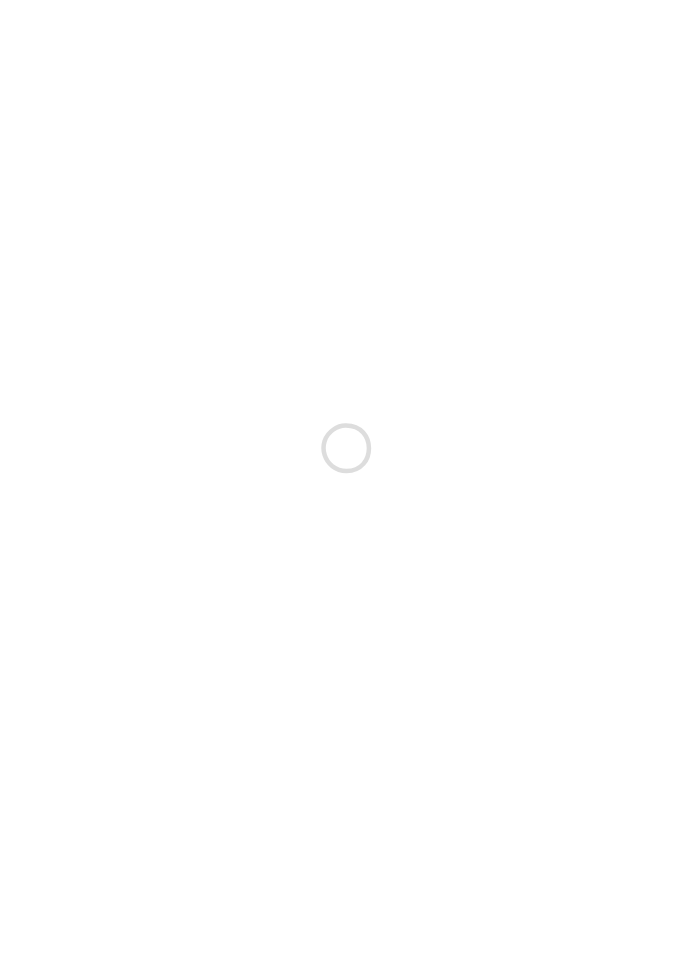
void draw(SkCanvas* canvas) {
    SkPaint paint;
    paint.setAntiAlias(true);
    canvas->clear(SK_ColorWHITE);
    paint.setStyle(SkPaint::kStroke_Style);
    paint.setStrokeWidth(4.5f);
    paint.setColor(SkColorSetRGB(221, 221, 221));
    canvas->drawPath(SkPathBuilder().moveTo(346, 425.5f).cubicTo(376.5f, 425.5f, 376.5f, 471, 346.5f, 471).cubicTo(324, 471, 315, 442, 333.5f, 429.5f).cubicTo(337, 427, 341, 425.5f, 345.5f, 425.5f).close().detach(), paint);
}
